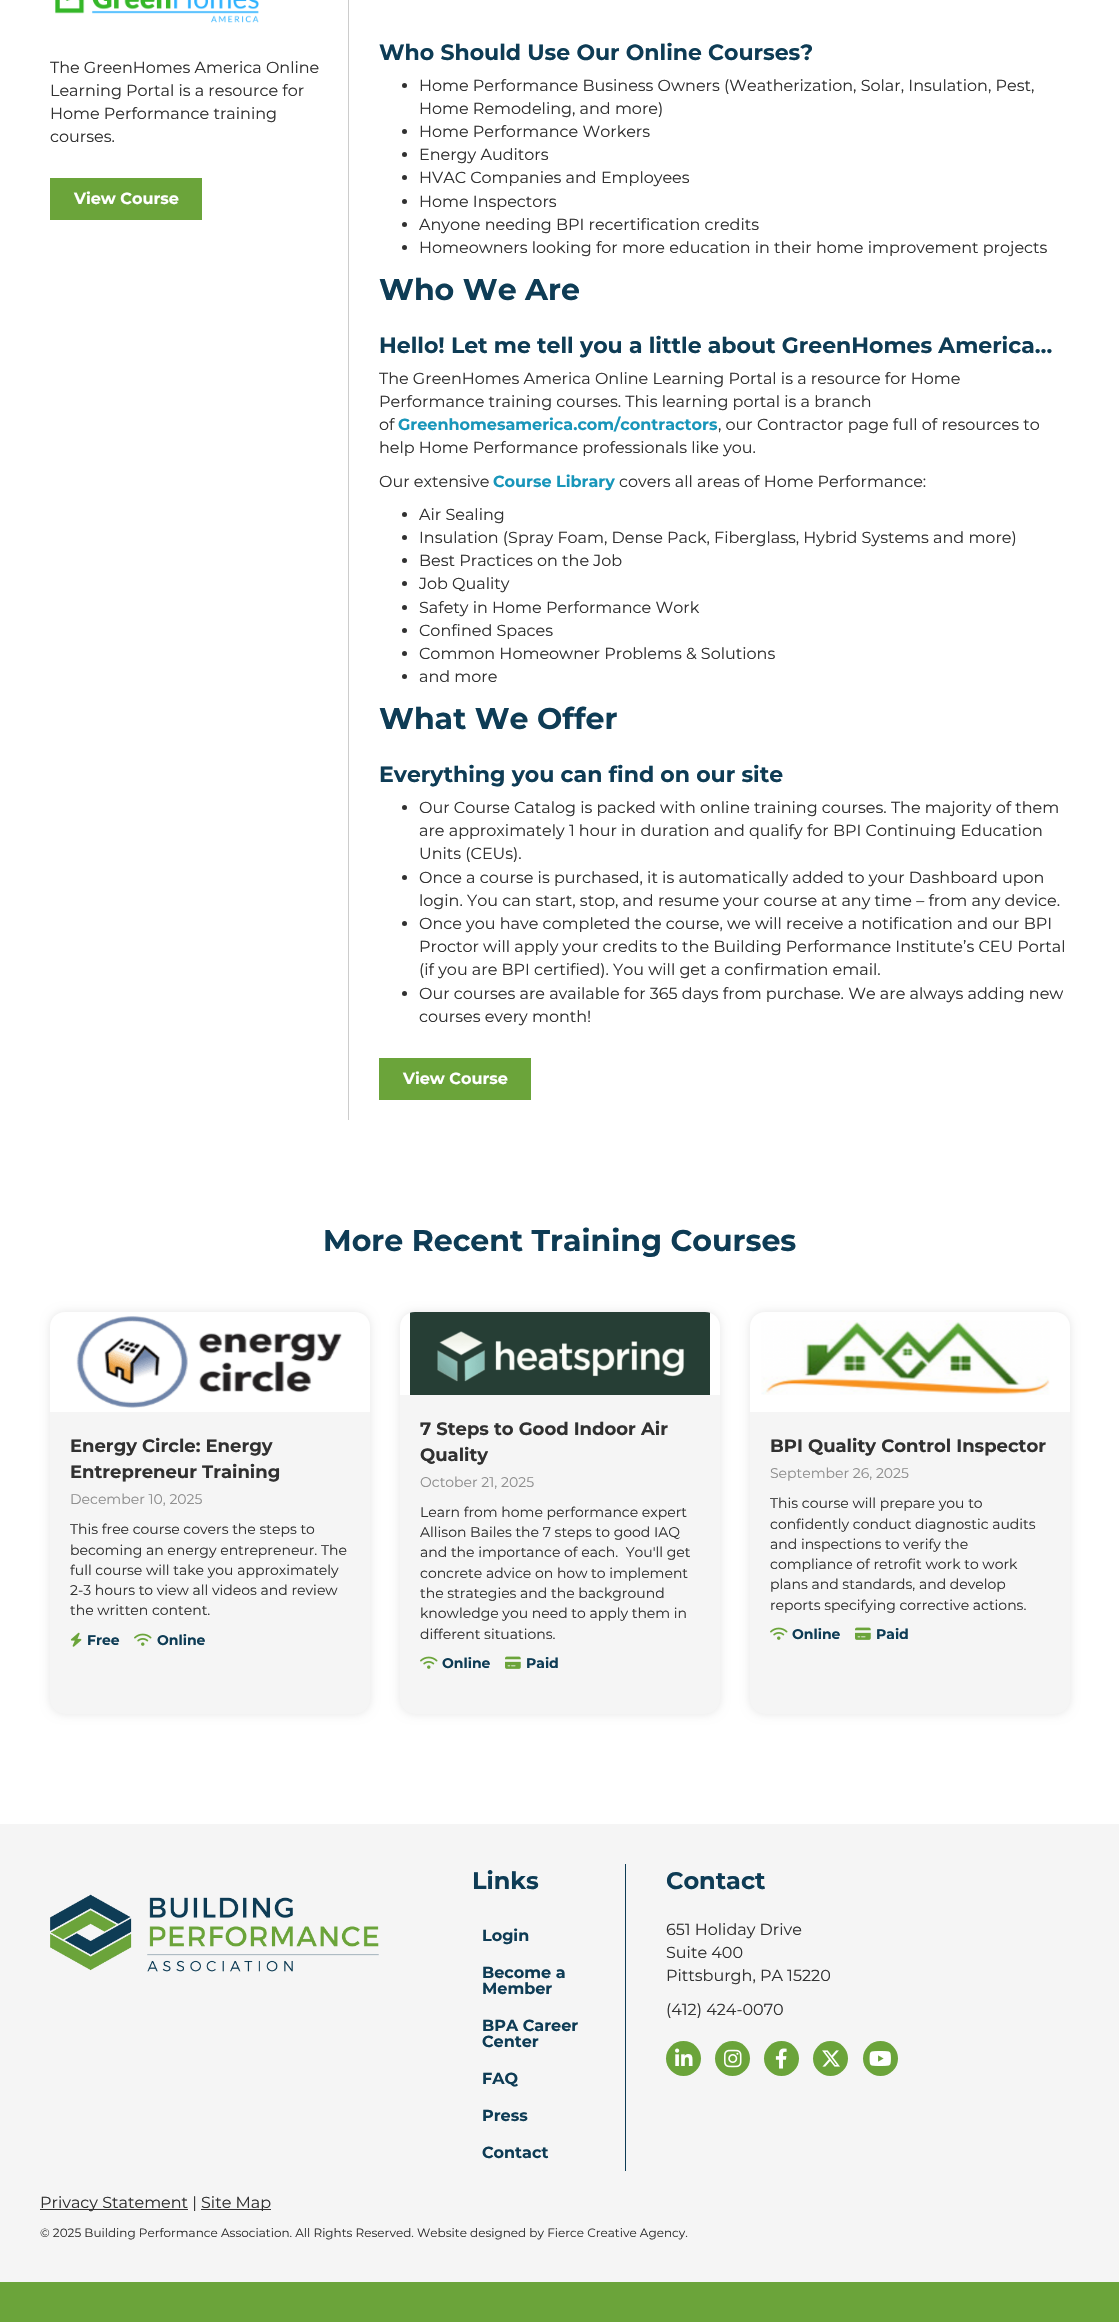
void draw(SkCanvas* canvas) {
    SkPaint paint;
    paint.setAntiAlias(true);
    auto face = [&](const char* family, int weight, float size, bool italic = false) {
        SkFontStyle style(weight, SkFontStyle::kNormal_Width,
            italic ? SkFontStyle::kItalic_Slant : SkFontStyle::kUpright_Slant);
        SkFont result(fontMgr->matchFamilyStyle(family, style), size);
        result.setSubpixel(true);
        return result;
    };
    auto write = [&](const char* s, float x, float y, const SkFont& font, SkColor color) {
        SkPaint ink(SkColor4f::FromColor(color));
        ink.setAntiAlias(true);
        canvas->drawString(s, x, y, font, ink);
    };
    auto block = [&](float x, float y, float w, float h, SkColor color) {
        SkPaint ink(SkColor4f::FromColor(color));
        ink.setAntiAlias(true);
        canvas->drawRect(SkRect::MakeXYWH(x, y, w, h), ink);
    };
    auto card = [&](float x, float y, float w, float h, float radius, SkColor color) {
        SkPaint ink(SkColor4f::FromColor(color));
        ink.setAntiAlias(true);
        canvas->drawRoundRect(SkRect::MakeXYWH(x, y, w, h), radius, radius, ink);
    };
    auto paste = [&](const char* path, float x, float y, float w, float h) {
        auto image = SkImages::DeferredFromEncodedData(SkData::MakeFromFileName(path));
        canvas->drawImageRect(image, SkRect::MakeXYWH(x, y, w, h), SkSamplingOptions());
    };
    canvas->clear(SK_ColorWHITE);
    paste("pic1.png", 55, 0, 204, 23);
    auto kFont1 = face("Montserrat", 400, 16);
    write("The GreenHomes America Online", 50, 73, kFont1, SkColorSetRGB(49, 49, 49));
    write("Learning Portal is a resource for", 50, 96, kFont1, SkColorSetRGB(49, 49, 49));
    write("Home Performance training", 50, 119, kFont1, SkColorSetRGB(49, 49, 49));
    write("courses.", 50, 142, kFont1, SkColorSetRGB(49, 49, 49));
    block(50, 178, 152, 42, SkColorSetRGB(107, 164, 58));
    auto kFont2 = face("Montserrat", 700, 16);
    write("View Course", 74, 204, kFont2, SK_ColorWHITE);
    block(348, 0, 1, 1120, SkColorSetRGB(204, 204, 204));
    auto kFont3 = face("Montserrat", 700, 22);
    write("Who Should Use Our Online Courses?", 379, 60, kFont3, SkColorSetRGB(14, 60, 85));
    paint.setColor(SkColorSetRGB(49, 49, 49));
    canvas->drawCircle(404.5f, 85.5f, 2.5f, paint);
    write("Home Performance Business Owners (Weatherization, Solar, Insulation, Pest,", 419, 91, kFont1, SkColorSetRGB(49, 49, 49));
    write("Home Remodeling, and more)", 419, 114, kFont1, SkColorSetRGB(49, 49, 49));
    canvas->drawCircle(404.5f, 131.5f, 2.5f, paint);
    write("Home Performance Workers", 419, 137, kFont1, SkColorSetRGB(49, 49, 49));
    canvas->drawCircle(404.5f, 154.5f, 2.5f, paint);
    write("Energy Auditors", 419, 160, kFont1, SkColorSetRGB(49, 49, 49));
    canvas->drawCircle(404.5f, 177.5f, 2.5f, paint);
    write("HVAC Companies and Employees", 419, 183, kFont1, SkColorSetRGB(49, 49, 49));
    canvas->drawCircle(404.5f, 201.5f, 2.5f, paint);
    write("Home Inspectors", 419, 207, kFont1, SkColorSetRGB(49, 49, 49));
    canvas->drawCircle(404.5f, 224.5f, 2.5f, paint);
    write("Anyone needing BPI recertification credits", 419, 230, kFont1, SkColorSetRGB(49, 49, 49));
    canvas->drawCircle(404.5f, 247.5f, 2.5f, paint);
    write("Homeowners looking for more education in their home improvement projects", 419, 253, kFont1, SkColorSetRGB(49, 49, 49));
    auto kFont4 = face("Montserrat", 700, 30);
    write("Who We Are", 379, 300, kFont4, SkColorSetRGB(14, 60, 85));
    write("Hello! Let me tell you a little about GreenHomes America…", 379, 353, kFont3, SkColorSetRGB(14, 60, 85));
    write("The GreenHomes America Online Learning Portal is a resource for Home", 379, 384, kFont1, SkColorSetRGB(49, 49, 49));
    write("Performance training courses. This learning portal is a branch", 379, 407, kFont1, SkColorSetRGB(49, 49, 49));
    write("of", 379, 430, kFont1, SkColorSetRGB(49, 49, 49));
    write("Greenhomesamerica.com/contractors", 398, 430, kFont2, SkColorSetRGB(24, 150, 186));
    write(", our Contractor page full of resources to", 718, 430, kFont1, SkColorSetRGB(49, 49, 49));
    write("help Home Performance professionals like you.", 379, 453, kFont1, SkColorSetRGB(49, 49, 49));
    write("Our extensive", 379, 487, kFont1, SkColorSetRGB(49, 49, 49));
    write("Course Library", 493, 487, kFont2, SkColorSetRGB(24, 150, 186));
    write("covers all areas of Home Performance:", 619, 487, kFont1, SkColorSetRGB(49, 49, 49));
    canvas->drawCircle(404.5f, 514.5f, 2.5f, paint);
    write("Air Sealing", 419, 520, kFont1, SkColorSetRGB(49, 49, 49));
    canvas->drawCircle(404.5f, 537.5f, 2.5f, paint);
    write("Insulation (Spray Foam, Dense Pack, Fiberglass, Hybrid Systems and more)", 419, 543, kFont1, SkColorSetRGB(49, 49, 49));
    canvas->drawCircle(404.5f, 560.5f, 2.5f, paint);
    write("Best Practices on the Job", 419, 566, kFont1, SkColorSetRGB(49, 49, 49));
    canvas->drawCircle(404.5f, 583.5f, 2.5f, paint);
    write("Job Quality", 419, 589, kFont1, SkColorSetRGB(49, 49, 49));
    canvas->drawCircle(404.5f, 607.5f, 2.5f, paint);
    write("Safety in Home Performance Work", 419, 613, kFont1, SkColorSetRGB(49, 49, 49));
    canvas->drawCircle(404.5f, 630.5f, 2.5f, paint);
    write("Confined Spaces", 419, 636, kFont1, SkColorSetRGB(49, 49, 49));
    canvas->drawCircle(404.5f, 653.5f, 2.5f, paint);
    write("Common Homeowner Problems & Solutions", 419, 659, kFont1, SkColorSetRGB(49, 49, 49));
    canvas->drawCircle(404.5f, 676.5f, 2.5f, paint);
    write("and more", 419, 682, kFont1, SkColorSetRGB(49, 49, 49));
    write("What We Offer", 379, 729, kFont4, SkColorSetRGB(14, 60, 85));
    write("Everything you can find on our site", 379, 782, kFont3, SkColorSetRGB(14, 60, 85));
    canvas->drawCircle(404.5f, 807.5f, 2.5f, paint);
    write("Our Course Catalog is packed with online training courses. The majority of them", 419, 813, kFont1, SkColorSetRGB(49, 49, 49));
    write("are approximately 1 hour in duration and qualify for BPI Continuing Education", 419, 836, kFont1, SkColorSetRGB(49, 49, 49));
    write("Units (CEUs).", 419, 859, kFont1, SkColorSetRGB(49, 49, 49));
    canvas->drawCircle(404.5f, 877.5f, 2.5f, paint);
    write("Once a course is purchased, it is automatically added to your Dashboard upon", 419, 883, kFont1, SkColorSetRGB(49, 49, 49));
    write("login. You can start, stop, and resume your course at any time – from any device.", 419, 906, kFont1, SkColorSetRGB(49, 49, 49));
    canvas->drawCircle(404.5f, 923.5f, 2.5f, paint);
    write("Once you have completed the course, we will receive a notification and our BPI", 419, 929, kFont1, SkColorSetRGB(49, 49, 49));
    write("Proctor will apply your credits to the Building Performance Institute’s CEU Portal", 419, 952, kFont1, SkColorSetRGB(49, 49, 49));
    write("(if you are BPI certified). You will get a confirmation email.", 419, 975, kFont1, SkColorSetRGB(49, 49, 49));
    canvas->drawCircle(404.5f, 993.5f, 2.5f, paint);
    write("Our courses are available for 365 days from purchase. We are always adding new", 419, 999, kFont1, SkColorSetRGB(49, 49, 49));
    write("courses every month!", 419, 1022, kFont1, SkColorSetRGB(49, 49, 49));
    block(379, 1058, 152, 42, SkColorSetRGB(107, 164, 58));
    write("View Course", 403, 1084, kFont2, SK_ColorWHITE);
    write("More Recent Training Courses", 323, 1251, kFont4, SkColorSetRGB(14, 60, 85));
    paint.setColor(SkColorSetARGB(26, 0, 0, 0));
    paint.setMaskFilter(SkMaskFilter::MakeBlur(kNormal_SkBlurStyle, 5));
    canvas->drawRoundRect(SkRect::MakeXYWH(50, 1312, 320, 402), 15, 15, paint);
    paint.setMaskFilter(nullptr);
    card(50, 1312, 320, 402, 15, SkColorSetRGB(245, 245, 245));
    paint.setColor(SK_ColorWHITE);
    canvas->drawPath(SkPathBuilder().moveTo(65, 1312).lineTo(355, 1312).cubicTo(363.5f, 1312, 370, 1318.5f, 370, 1327).lineTo(370, 1412).lineTo(50, 1412).lineTo(50, 1327).cubicTo(50, 1318.5f, 56.5f, 1312, 65, 1312).close().detach(), paint);
    paste("pic2.png", 76, 1316, 266, 92);
    auto kFont5 = face("Montserrat", 700, 18);
    write("Energy Circle: Energy", 70, 1452, kFont5, SkColorSetRGB(49, 49, 49));
    write("Entrepreneur Training", 70, 1478, kFont5, SkColorSetRGB(49, 49, 49));
    auto kFont6 = face("Montserrat", 400, 14);
    write("December 10, 2025", 70, 1504, kFont6, SkColorSetRGB(142, 142, 142));
    write("This free course covers the steps to", 70, 1534, kFont6, SkColorSetRGB(49, 49, 49));
    write("becoming an energy entrepreneur. The", 70, 1555, kFont6, SkColorSetRGB(49, 49, 49));
    write("full course will take you approximately", 70, 1575, kFont6, SkColorSetRGB(49, 49, 49));
    write("2-3 hours to view all videos and review", 70, 1595, kFont6, SkColorSetRGB(49, 49, 49));
    write("the written content.", 70, 1615, kFont6, SkColorSetRGB(49, 49, 49));
    paste("pic3.png", 70, 1632, 12, 15);
    auto kFont7 = face("Montserrat", 700, 14);
    write("Free", 87, 1645, kFont7, SkColorSetRGB(14, 60, 85));
    paste("pic4.png", 134, 1633, 18, 13);
    write("Online", 157, 1645, kFont7, SkColorSetRGB(14, 60, 85));
    paint.setColor(SkColorSetARGB(26, 0, 0, 0));
    paint.setMaskFilter(SkMaskFilter::MakeBlur(kNormal_SkBlurStyle, 5));
    canvas->drawRoundRect(SkRect::MakeXYWH(400, 1312, 320, 402), 15, 15, paint);
    paint.setMaskFilter(nullptr);
    card(400, 1312, 320, 402, 15, SkColorSetRGB(245, 245, 245));
    paint.setColor(SK_ColorWHITE);
    canvas->drawPath(SkPathBuilder().moveTo(415, 1312).lineTo(705, 1312).cubicTo(713.5f, 1312, 720, 1318.5f, 720, 1327).lineTo(720, 1395).lineTo(400, 1395).lineTo(400, 1327).cubicTo(400, 1318.5f, 406.5f, 1312, 415, 1312).close().detach(), paint);
    paste("pic5.png", 410, 1312, 300, 83);
    write("7 Steps to Good Indoor Air", 420, 1435, kFont5, SkColorSetRGB(49, 49, 49));
    write("Quality", 420, 1461, kFont5, SkColorSetRGB(49, 49, 49));
    write("October 21, 2025", 420, 1487, kFont6, SkColorSetRGB(142, 142, 142));
    write("Learn from home performance expert", 420, 1517, kFont6, SkColorSetRGB(49, 49, 49));
    write("Allison Bailes the 7 steps to good IAQ", 420, 1537, kFont6, SkColorSetRGB(49, 49, 49));
    write("and the importance of each.  You'll get", 420, 1557, kFont6, SkColorSetRGB(49, 49, 49));
    write("concrete advice on how to implement", 420, 1578, kFont6, SkColorSetRGB(49, 49, 49));
    write("the strategies and the background", 420, 1598, kFont6, SkColorSetRGB(49, 49, 49));
    write("knowledge you need to apply them in", 420, 1618, kFont6, SkColorSetRGB(49, 49, 49));
    write("different situations.", 420, 1639, kFont6, SkColorSetRGB(49, 49, 49));
    paste("pic4.png", 420, 1656, 18, 13);
    write("Online", 442, 1668, kFont7, SkColorSetRGB(14, 60, 85));
    paste("pic6.png", 505, 1656, 16, 13);
    write("Paid", 526, 1668, kFont7, SkColorSetRGB(14, 60, 85));
    paint.setColor(SkColorSetARGB(26, 0, 0, 0));
    paint.setMaskFilter(SkMaskFilter::MakeBlur(kNormal_SkBlurStyle, 5));
    canvas->drawRoundRect(SkRect::MakeXYWH(750, 1312, 320, 402), 15, 15, paint);
    paint.setMaskFilter(nullptr);
    card(750, 1312, 320, 402, 15, SkColorSetRGB(245, 245, 245));
    paint.setColor(SK_ColorWHITE);
    canvas->drawPath(SkPathBuilder().moveTo(765, 1312).lineTo(1055, 1312).cubicTo(1063.5f, 1312, 1070, 1318.5f, 1070, 1327).lineTo(1070, 1412).lineTo(750, 1412).lineTo(750, 1327).cubicTo(750, 1318.5f, 756.5f, 1312, 765, 1312).close().detach(), paint);
    paste("pic7.png", 761, 1320, 289, 75);
    write("BPI Quality Control Inspector", 770, 1452, kFont5, SkColorSetRGB(49, 49, 49));
    write("September 26, 2025", 770, 1478, kFont6, SkColorSetRGB(142, 142, 142));
    write("This course will prepare you to", 770, 1508, kFont6, SkColorSetRGB(49, 49, 49));
    write("confidently conduct diagnostic audits", 770, 1529, kFont6, SkColorSetRGB(49, 49, 49));
    write("and inspections to verify the", 770, 1549, kFont6, SkColorSetRGB(49, 49, 49));
    write("compliance of retrofit work to work", 770, 1569, kFont6, SkColorSetRGB(49, 49, 49));
    write("plans and standards, and develop", 770, 1589, kFont6, SkColorSetRGB(49, 49, 49));
    write("reports specifying corrective actions.", 770, 1610, kFont6, SkColorSetRGB(49, 49, 49));
    paste("pic4.png", 770, 1627, 18, 13);
    write("Online", 792, 1639, kFont7, SkColorSetRGB(14, 60, 85));
    paste("pic6.png", 855, 1627, 16, 13);
    write("Paid", 876, 1639, kFont7, SkColorSetRGB(14, 60, 85));
    block(0, 1824, 1119, 458, SkColorSetRGB(245, 245, 245));
    block(0, 2282, 1119, 40, SkColorSetRGB(107, 164, 58));
    paste("pic8.png", 50, 1894, 329, 78);
    block(625, 1864, 1, 307, SkColorSetRGB(14, 60, 85));
    auto kFont8 = face("Montserrat", 700, 24);
    write("Links", 472, 1889, kFont8, SkColorSetRGB(14, 60, 85));
    write("Login", 482, 1941, kFont2, SkColorSetRGB(14, 60, 85));
    write("Become a", 482, 1978, kFont2, SkColorSetRGB(14, 60, 85));
    write("Member", 482, 1994, kFont2, SkColorSetRGB(14, 60, 85));
    write("BPA Career", 482, 2031, kFont2, SkColorSetRGB(14, 60, 85));
    write("Center", 482, 2047, kFont2, SkColorSetRGB(14, 60, 85));
    write("FAQ", 482, 2084, kFont2, SkColorSetRGB(14, 60, 85));
    write("Press", 482, 2121, kFont2, SkColorSetRGB(14, 60, 85));
    write("Contact", 482, 2158, kFont2, SkColorSetRGB(14, 60, 85));
    write("Contact", 666, 1889, kFont8, SkColorSetRGB(14, 60, 85));
    write("651 Holiday Drive", 666, 1935, kFont1, SkColorSetRGB(49, 49, 49));
    write("Suite 400", 666, 1958, kFont1, SkColorSetRGB(49, 49, 49));
    write("Pittsburgh, PA 15220", 666, 1981, kFont1, SkColorSetRGB(49, 49, 49));
    write("(412) 424-0070", 666, 2015, kFont1, SkColorSetRGB(49, 49, 49));
    paint.setColor(SkColorSetRGB(107, 164, 58));
    canvas->drawCircle(683.5f, 2058.5f, 17.5f, paint);
    paste("pic9.png", 675, 2048, 18, 18);
    canvas->drawCircle(732.5f, 2058.5f, 17.5f, paint);
    paste("pic10.png", 724, 2049, 18, 19);
    canvas->drawCircle(781.5f, 2058.5f, 17.5f, paint);
    paste("pic11.png", 775, 2048, 12, 21);
    canvas->drawCircle(830.5f, 2058.5f, 17.5f, paint);
    paste("pic12.png", 822, 2050, 18, 17);
    canvas->drawCircle(880.5f, 2058.5f, 17.5f, paint);
    paste("pic13.png", 869, 2051, 22, 15);
    block(40, 2209, 148, 1, SkColorSetRGB(49, 49, 49));
    write("Privacy Statement |", 40, 2208, kFont1, SkColorSetRGB(49, 49, 49));
    block(201, 2209, 70, 1, SkColorSetRGB(49, 49, 49));
    write("Site Map", 201, 2208, kFont1, SkColorSetRGB(49, 49, 49));
    auto kFont9 = face("Montserrat", 400, 12);
    write("© 2025 Building Performance Association. All Rights Reserved. Website designed by Fierce Creative Agency.", 40, 2237, kFont9, SkColorSetRGB(49, 49, 49));
}
